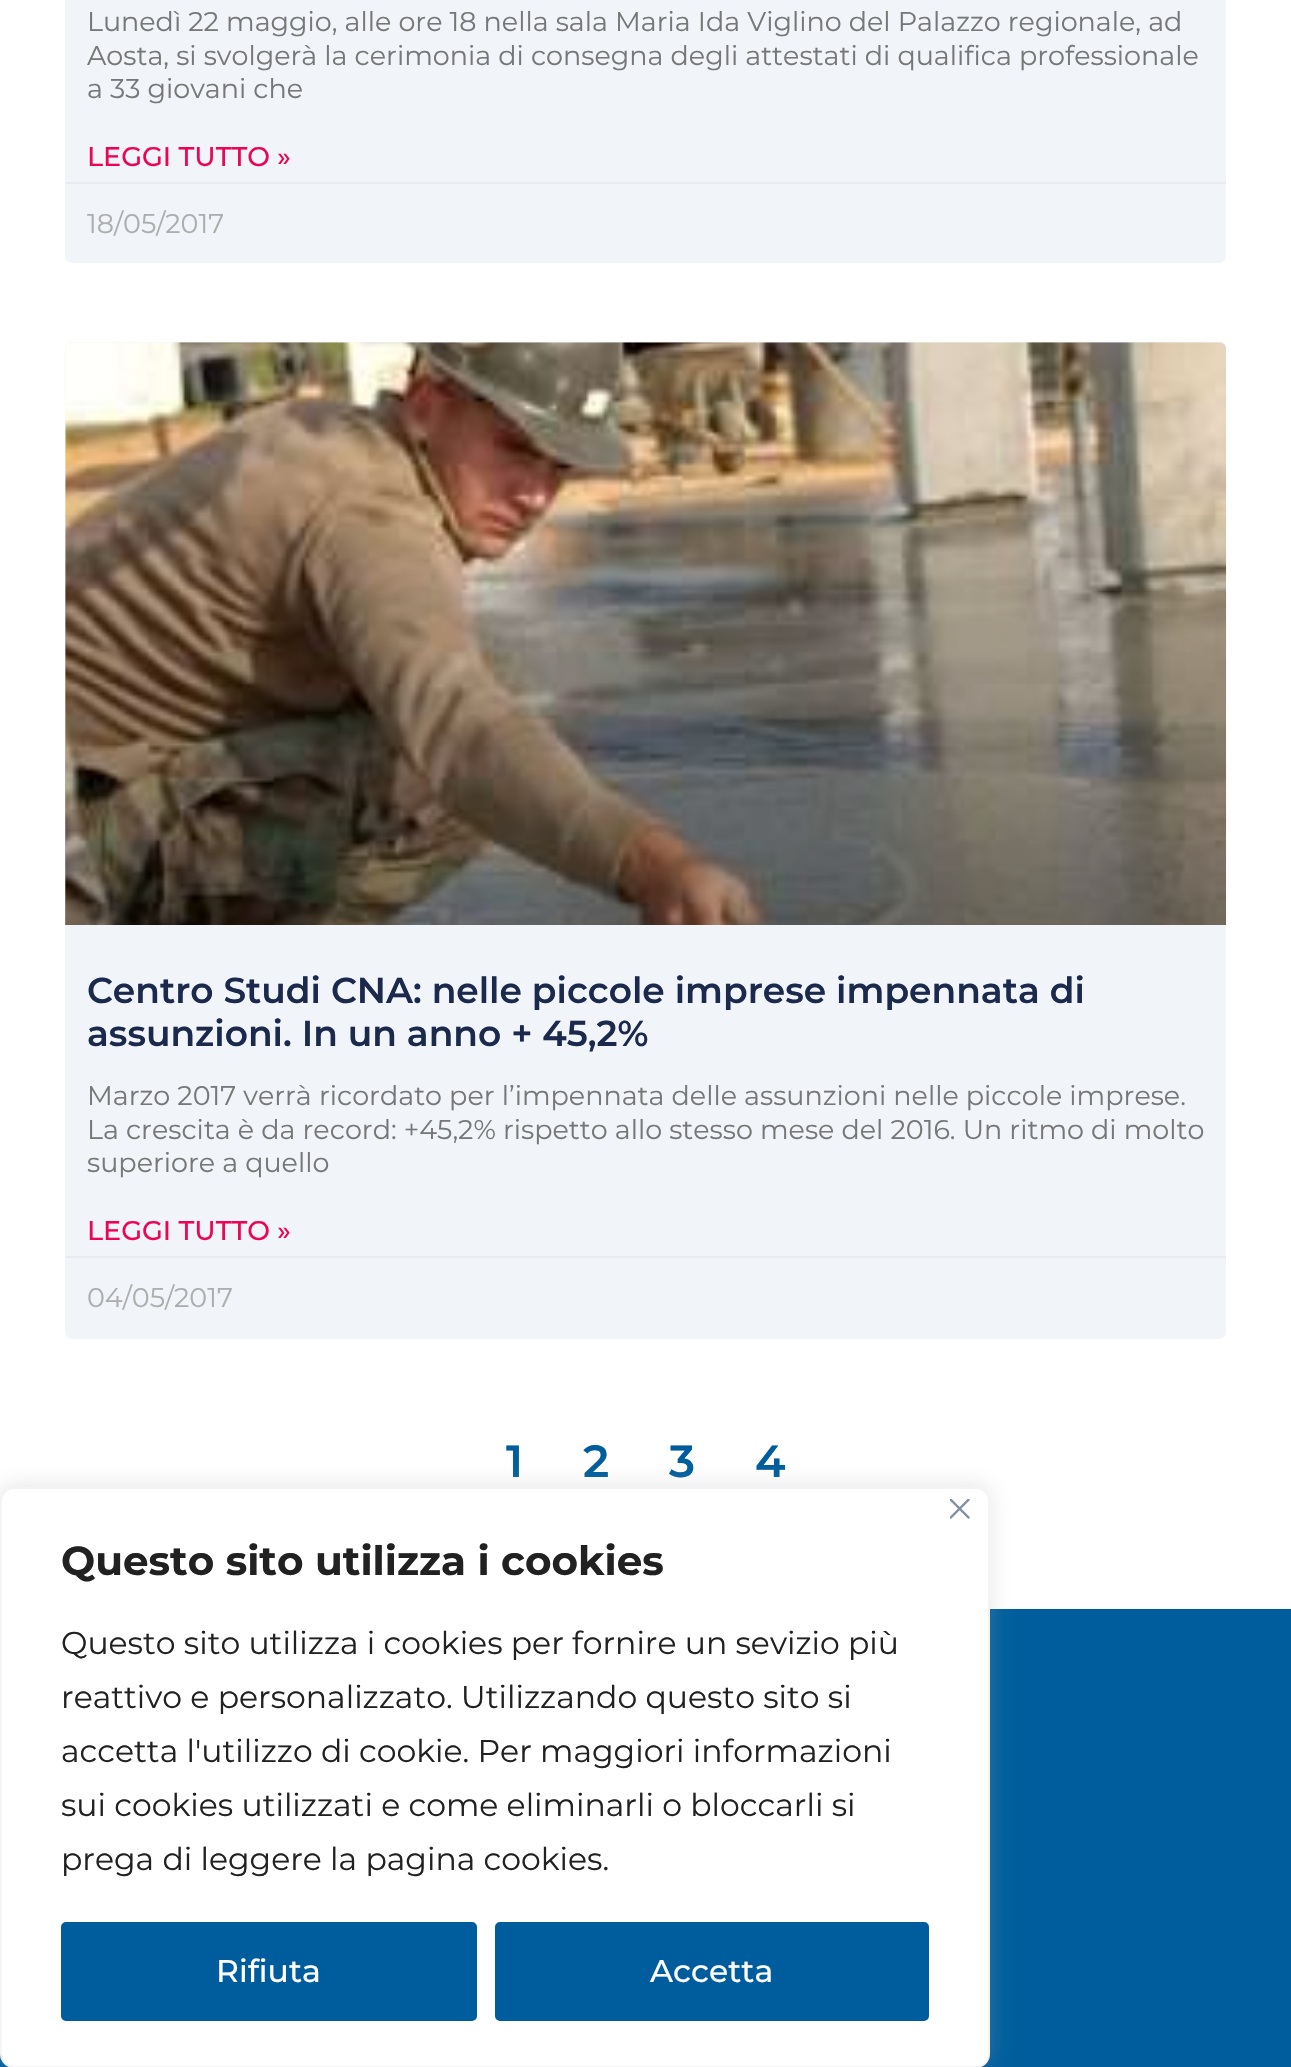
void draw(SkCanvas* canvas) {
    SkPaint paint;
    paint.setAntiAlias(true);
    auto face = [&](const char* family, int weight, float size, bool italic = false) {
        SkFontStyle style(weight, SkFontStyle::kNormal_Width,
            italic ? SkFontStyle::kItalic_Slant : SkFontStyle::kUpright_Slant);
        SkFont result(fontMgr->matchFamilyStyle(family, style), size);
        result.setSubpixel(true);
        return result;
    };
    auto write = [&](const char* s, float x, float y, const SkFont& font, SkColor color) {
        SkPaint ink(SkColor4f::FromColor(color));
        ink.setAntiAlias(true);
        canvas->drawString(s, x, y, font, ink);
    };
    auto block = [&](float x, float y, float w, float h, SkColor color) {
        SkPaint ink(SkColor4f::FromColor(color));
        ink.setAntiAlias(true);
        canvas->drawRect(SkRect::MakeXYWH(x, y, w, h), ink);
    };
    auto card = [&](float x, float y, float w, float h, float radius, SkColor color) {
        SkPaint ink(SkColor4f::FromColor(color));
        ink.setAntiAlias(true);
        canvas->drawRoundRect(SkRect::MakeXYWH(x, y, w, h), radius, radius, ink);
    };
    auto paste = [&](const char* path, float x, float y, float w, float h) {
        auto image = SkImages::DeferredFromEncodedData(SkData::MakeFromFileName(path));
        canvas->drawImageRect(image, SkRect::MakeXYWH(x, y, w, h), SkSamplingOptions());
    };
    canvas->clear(SK_ColorWHITE);
    card(65, -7, 1161, 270, 7, SkColorSetRGB(241, 245, 249));
    auto kFont1 = face("Montserrat", 400, 27);
    write("Lunedì 22 maggio, alle ore 18 nella sala Maria Ida Viglino del Palazzo regionale, ad", 87, 31, kFont1, SkColorSetRGB(119, 119, 119));
    write("Aosta, si svolgerà la cerimonia di consegna degli attestati di qualifica professionale", 87, 65, kFont1, SkColorSetRGB(119, 119, 119));
    write("a 33 giovani che", 87, 98, kFont1, SkColorSetRGB(119, 119, 119));
    auto kFont2 = face("Montserrat", 500, 27);
    write("LEGGI TUTTO »", 87, 166, kFont2, SkColorSetRGB(236, 5, 84));
    block(65, 182, 1161, 2, SkColorSetRGB(234, 234, 234));
    write("18/05/2017", 87, 233, kFont1, SkColorSetRGB(173, 173, 173));
    card(65, 342, 1161, 997, 7, SkColorSetRGB(241, 245, 249));
    paste("pic1.png", 65, 342, 1162, 583);
    {
        const SkColor colors[] = {SkColorSetARGB(89, 0, 0, 0), SkColorSetARGB(0, 0, 0, 0)};
        const float stops[] = {0, 0.75f};
        const SkPoint ends[] = {{646, 925}, {646, 342}};
        paint.setShader(SkGradientShader::MakeLinear(ends, colors, stops, 2, SkTileMode::kClamp));
        paint.setAlpha(255);
    }
    canvas->drawRect(SkRect::MakeXYWH(65, 515, 1161, 410), paint);
    auto kFont3 = face("Montserrat", 600, 36);
    write("Centro Studi CNA: nelle piccole imprese impennata di", 87, 1003, kFont3, SkColorSetRGB(27, 42, 76));
    write("assunzioni. In un anno + 45,2%", 87, 1046, kFont3, SkColorSetRGB(27, 42, 76));
    write("Marzo 2017 verrà ricordato per l’impennata delle assunzioni nelle piccole imprese.", 87, 1105, kFont1, SkColorSetRGB(119, 119, 119));
    write("La crescita è da record: +45,2% rispetto allo stesso mese del 2016. Un ritmo di molto", 87, 1139, kFont1, SkColorSetRGB(119, 119, 119));
    write("superiore a quello", 87, 1172, kFont1, SkColorSetRGB(119, 119, 119));
    write("LEGGI TUTTO »", 87, 1240, kFont2, SkColorSetRGB(236, 5, 84));
    block(65, 1256, 1161, 2, SkColorSetRGB(234, 234, 234));
    write("04/05/2017", 87, 1307, kFont1, SkColorSetRGB(173, 173, 173));
    auto kFont4 = face("Montserrat", 600, 45);
    write("1", 506, 1477, kFont4, SkColorSetRGB(0, 93, 157));
    write("2", 583, 1477, kFont4, SkColorSetRGB(0, 93, 157));
    write("3", 669, 1477, kFont4, SkColorSetRGB(0, 93, 157));
    write("4", 755, 1477, kFont4, SkColorSetRGB(0, 93, 157));
    block(0, 1609, 1291, 458, SkColorSetRGB(0, 93, 157));
    paint.setShader(nullptr);
    paint.setColor(SkColorSetARGB(77, 172, 171, 171));
    paint.setMaskFilter(SkMaskFilter::MakeBlur(kNormal_SkBlurStyle, 11));
    canvas->drawRoundRect(SkRect::MakeXYWH(0, 1485, 990, 581), 14, 14, paint);
    paint.setMaskFilter(nullptr);
    paint.setColor(SK_ColorWHITE);
    canvas->drawRoundRect(SkRect::MakeXYWH(1, 1488, 988, 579), 13, 13, paint);
    paint.setStyle(SkPaint::kStroke_Style);
    paint.setStrokeWidth(2);
    paint.setColor(SkColorSetRGB(244, 244, 244));
    canvas->drawRoundRect(SkRect::MakeXYWH(1, 1488, 988, 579), 13, 13, paint);
    paste("pic2.png", 950, 1499, 20, 20);
    auto kFont5 = face("Montserrat", 700, 40.5f);
    write("Questo sito utilizza i cookies", 61, 1575, kFont5, SkColorSetRGB(33, 33, 33));
    auto kFont6 = face("Montserrat", 400, 31.5f);
    write("Questo sito utilizza i cookies per fornire un sevizio più", 61, 1654, kFont6, SkColorSetRGB(33, 33, 33));
    write("reattivo e personalizzato. Utilizzando questo sito si", 61, 1708, kFont6, SkColorSetRGB(33, 33, 33));
    write("accetta l'utilizzo di cookie. Per maggiori informazioni", 61, 1762, kFont6, SkColorSetRGB(33, 33, 33));
    write("sui cookies utilizzati e come eliminarli o bloccarli si", 61, 1816, kFont6, SkColorSetRGB(33, 33, 33));
    write("prega di leggere la pagina cookies.", 61, 1870, kFont6, SkColorSetRGB(33, 33, 33));
    paint.setStyle(SkPaint::kFill_Style);
    paint.setColor(SkColorSetRGB(0, 93, 157));
    canvas->drawRoundRect(SkRect::MakeXYWH(63.5f, 1924.5f, 411, 94), 2.5f, 2.5f, paint);
    paint.setStyle(SkPaint::kStroke_Style);
    paint.setStrokeWidth(5);
    canvas->drawRoundRect(SkRect::MakeXYWH(63.5f, 1924.5f, 411, 94), 2.5f, 2.5f, paint);
    auto kFont7 = face("Montserrat", 500, 31.5f);
    write("Rifiuta", 216, 1982, kFont7, SK_ColorWHITE);
    paint.setStyle(SkPaint::kFill_Style);
    canvas->drawRoundRect(SkRect::MakeXYWH(497.5f, 1924.5f, 429, 94), 2.5f, 2.5f, paint);
    paint.setStyle(SkPaint::kStroke_Style);
    canvas->drawRoundRect(SkRect::MakeXYWH(497.5f, 1924.5f, 429, 94), 2.5f, 2.5f, paint);
    write("Accetta", 650, 1982, kFont7, SK_ColorWHITE);
}
